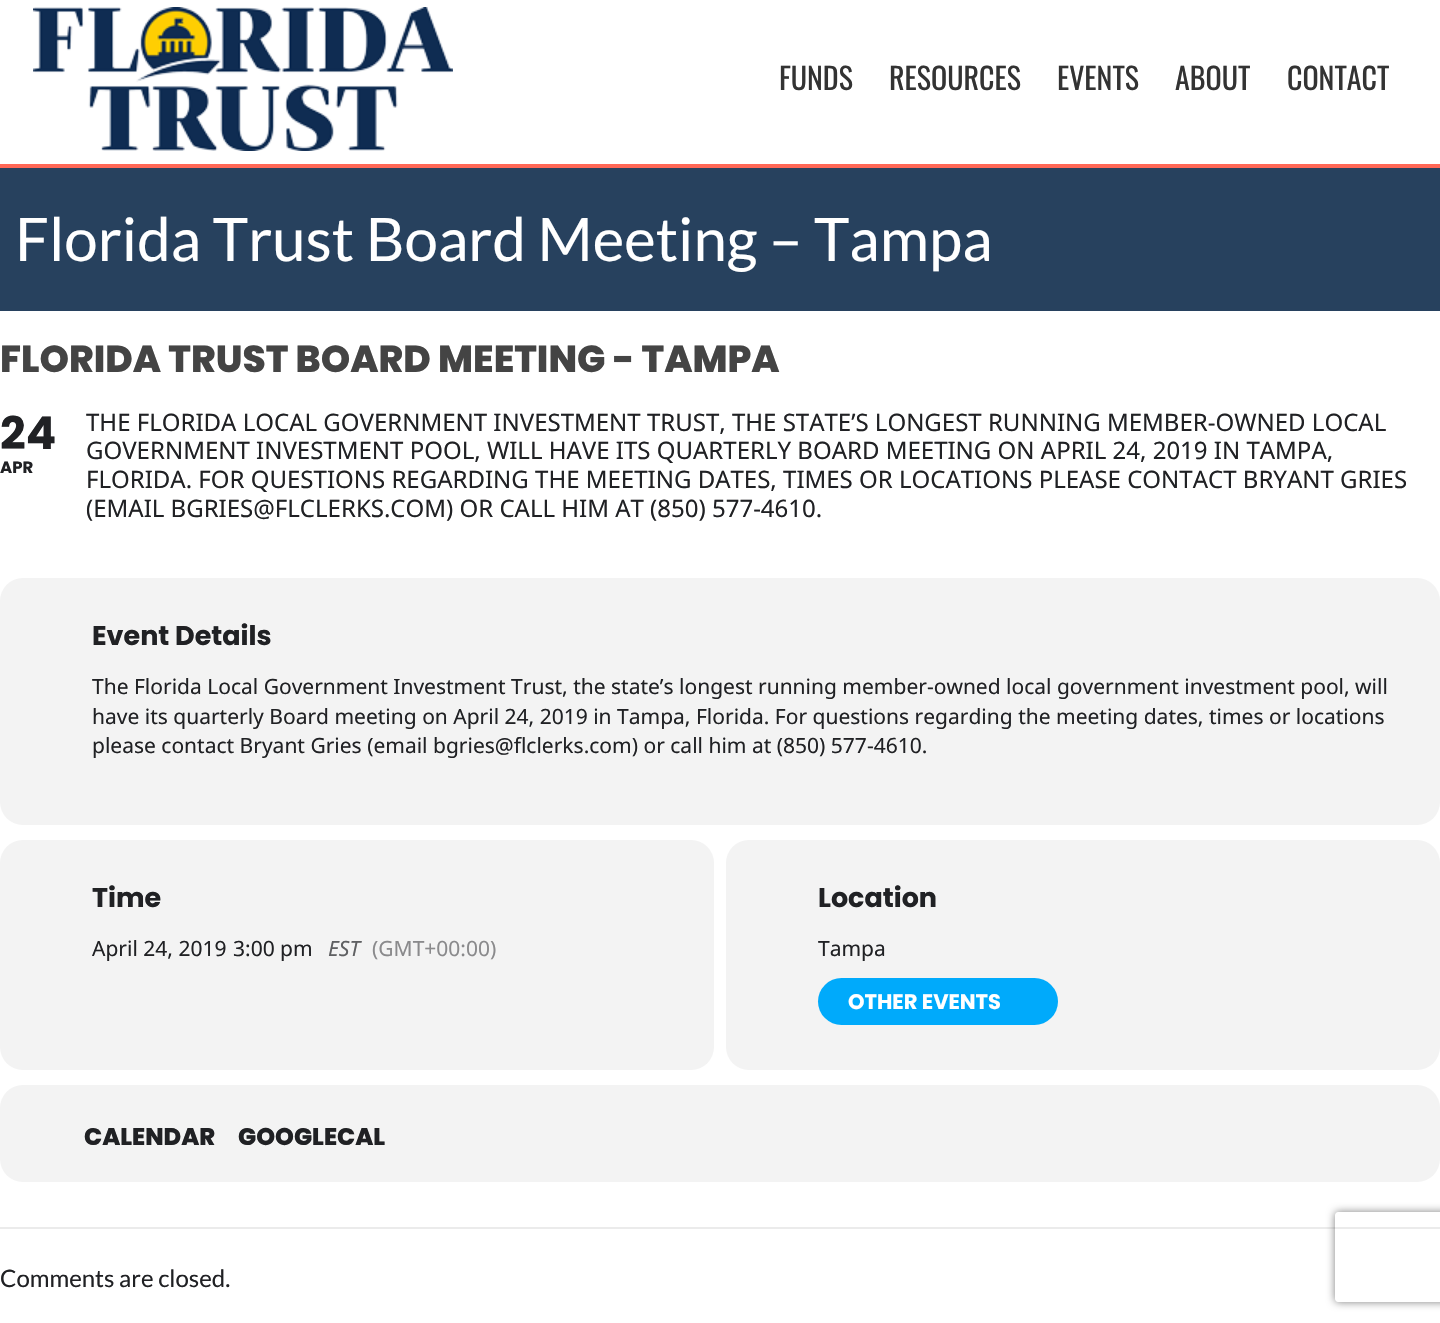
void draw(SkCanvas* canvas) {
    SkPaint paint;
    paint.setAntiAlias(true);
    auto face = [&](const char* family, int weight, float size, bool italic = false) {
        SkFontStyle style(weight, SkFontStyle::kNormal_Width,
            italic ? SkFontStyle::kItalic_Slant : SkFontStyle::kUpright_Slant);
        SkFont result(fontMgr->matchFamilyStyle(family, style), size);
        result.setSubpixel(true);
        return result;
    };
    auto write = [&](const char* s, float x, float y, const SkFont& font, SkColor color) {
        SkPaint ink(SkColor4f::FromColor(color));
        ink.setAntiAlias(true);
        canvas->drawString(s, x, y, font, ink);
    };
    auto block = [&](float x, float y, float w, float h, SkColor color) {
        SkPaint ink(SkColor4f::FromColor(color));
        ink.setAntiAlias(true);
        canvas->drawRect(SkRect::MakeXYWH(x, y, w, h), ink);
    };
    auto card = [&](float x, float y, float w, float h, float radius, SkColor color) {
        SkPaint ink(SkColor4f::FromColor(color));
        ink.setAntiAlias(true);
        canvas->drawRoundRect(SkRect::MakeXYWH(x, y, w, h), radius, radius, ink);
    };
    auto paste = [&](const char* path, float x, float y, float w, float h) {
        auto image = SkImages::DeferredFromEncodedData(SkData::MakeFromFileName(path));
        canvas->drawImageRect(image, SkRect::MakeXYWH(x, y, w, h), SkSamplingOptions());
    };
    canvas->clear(SK_ColorWHITE);
    block(0, 164, 1440, 4, SkColorSetRGB(255, 103, 86));
    paste("pic1.png", 33, 7, 420, 144);
    auto kFont1 = face("Oswald", 400, 30);
    write("FUNDS", 779, 90, kFont1, SkColorSetRGB(51, 51, 51));
    write("RESOURCES", 889, 90, kFont1, SkColorSetRGB(51, 51, 51));
    write("EVENTS", 1057, 90, kFont1, SkColorSetRGB(51, 51, 51));
    write("ABOUT", 1175, 90, kFont1, SkColorSetRGB(51, 51, 51));
    write("CONTACT", 1287, 90, kFont1, SkColorSetRGB(51, 51, 51));
    block(0, 168, 1440, 143, SkColorSetRGB(39, 65, 94));
    auto kFont2 = face("Lato", 400, 60);
    write("Florida Trust Board Meeting – Tampa", 15, 261, kFont2, SK_ColorWHITE);
    auto kFont3 = face("Poppins", 800, 37.5f);
    write("FLORIDA TRUST BOARD MEETING - TAMPA", 0, 372, kFont3, SkColorSetRGB(68, 68, 68));
    auto kFont4 = face("Poppins", 700, 45);
    write("24", 0, 449, kFont4, SkColorSetRGB(32, 33, 36));
    auto kFont5 = face("Poppins", 700, 16.5f);
    write("APR", 0, 473, kFont5, SkColorSetRGB(32, 33, 36));
    auto kFont6 = face("Noto Sans", 400, 24);
    write("THE FLORIDA LOCAL GOVERNMENT INVESTMENT TRUST, THE STATE’S LONGEST RUNNING MEMBER-OWNED LOCAL", 86, 431, kFont6, SkColorSetRGB(32, 33, 36));
    write("GOVERNMENT INVESTMENT POOL, WILL HAVE ITS QUARTERLY BOARD MEETING ON APRIL 24, 2019 IN TAMPA,", 86, 459, kFont6, SkColorSetRGB(32, 33, 36));
    write("FLORIDA. FOR QUESTIONS REGARDING THE MEETING DATES, TIMES OR LOCATIONS PLEASE CONTACT BRYANT GRIES", 86, 488, kFont6, SkColorSetRGB(32, 33, 36));
    write("(EMAIL BGRIES@FLCLERKS.COM) OR CALL HIM AT (850) 577-4610.", 86, 517, kFont6, SkColorSetRGB(32, 33, 36));
    card(0, 578, 1440, 247, 23, SkColorSetRGB(243, 243, 243));
    auto kFont7 = face("Poppins", 700, 27);
    write("Event Details", 92, 645, kFont7, SkColorSetRGB(32, 33, 36));
    auto kFont8 = face("Noto Sans", 400, 21);
    write("The Florida Local Government Investment Trust, the state’s longest running member-owned local government investment pool, will", 92, 694, kFont8, SkColorSetRGB(32, 33, 36));
    write("have its quarterly Board meeting on April 24, 2019 in Tampa, Florida. For questions regarding the meeting dates, times or locations", 92, 724, kFont8, SkColorSetRGB(32, 33, 36));
    write("please contact Bryant Gries (email bgries@flclerks.com) or call him at (850) 577-4610.", 92, 753, kFont8, SkColorSetRGB(32, 33, 36));
    card(0, 840, 714, 230, 23, SkColorSetRGB(243, 243, 243));
    write("Time", 92, 907, kFont7, SkColorSetRGB(32, 33, 36));
    write("April 24, 2019", 92, 956, kFont8, SkColorSetRGB(32, 33, 36));
    write("3:00 pm", 233, 956, kFont8, SkColorSetRGB(32, 33, 36));
    auto kFont9 = face("Noto Sans", 400, 21, true);
    write("EST", 328, 956, kFont9, SkColorSetRGB(95, 96, 98));
    write("(GMT+00:00)", 372, 956, kFont8, SkColorSetRGB(138, 138, 140));
    card(726, 840, 714, 230, 23, SkColorSetRGB(243, 243, 243));
    write("Location", 818, 907, kFont7, SkColorSetRGB(32, 33, 36));
    write("Tampa", 818, 956, kFont8, SkColorSetRGB(32, 33, 36));
    card(818, 978, 240, 47, 23.5f, SkColorSetRGB(0, 170, 251));
    auto kFont10 = face("Poppins", 700, 21);
    write("OTHER EVENTS", 848, 1009, kFont10, SK_ColorWHITE);
    card(0, 1085, 1440, 97, 23, SkColorSetRGB(243, 243, 243));
    auto kFont11 = face("Poppins", 800, 24);
    write("CALENDAR", 84, 1145, kFont11, SkColorSetRGB(32, 33, 36));
    write("GOOGLECAL", 238, 1145, kFont11, SkColorSetRGB(32, 33, 36));
    canvas->save();
    canvas->clipPath(SkPathBuilder(SkPathFillType::kEvenOdd).moveTo(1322, 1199).lineTo(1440, 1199).lineTo(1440, 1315).lineTo(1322, 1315).close().moveTo(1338, 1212).lineTo(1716, 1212).cubicTo(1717.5f, 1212, 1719, 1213.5f, 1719, 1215).lineTo(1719, 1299).cubicTo(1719, 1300.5f, 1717.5f, 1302, 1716, 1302).lineTo(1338, 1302).cubicTo(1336.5f, 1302, 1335, 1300.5f, 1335, 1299).lineTo(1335, 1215).cubicTo(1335, 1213.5f, 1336.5f, 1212, 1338, 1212).close().detach(), true);
    paint.setColor(SkColorSetRGB(128, 128, 128));
    paint.setMaskFilter(SkMaskFilter::MakeBlur(kNormal_SkBlurStyle, 4));
    canvas->drawRoundRect(SkRect::MakeXYWH(1335, 1212, 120, 90), 3, 3, paint);
    paint.setMaskFilter(nullptr);
    canvas->restore();
    block(0, 1227, 1440, 2, SkColorSetARGB(20, 0, 0, 0));
    auto kFont12 = face("Lato", 400, 24);
    write("Comments are closed.", 0, 1287, kFont12, SkColorSetRGB(32, 33, 36));
}
